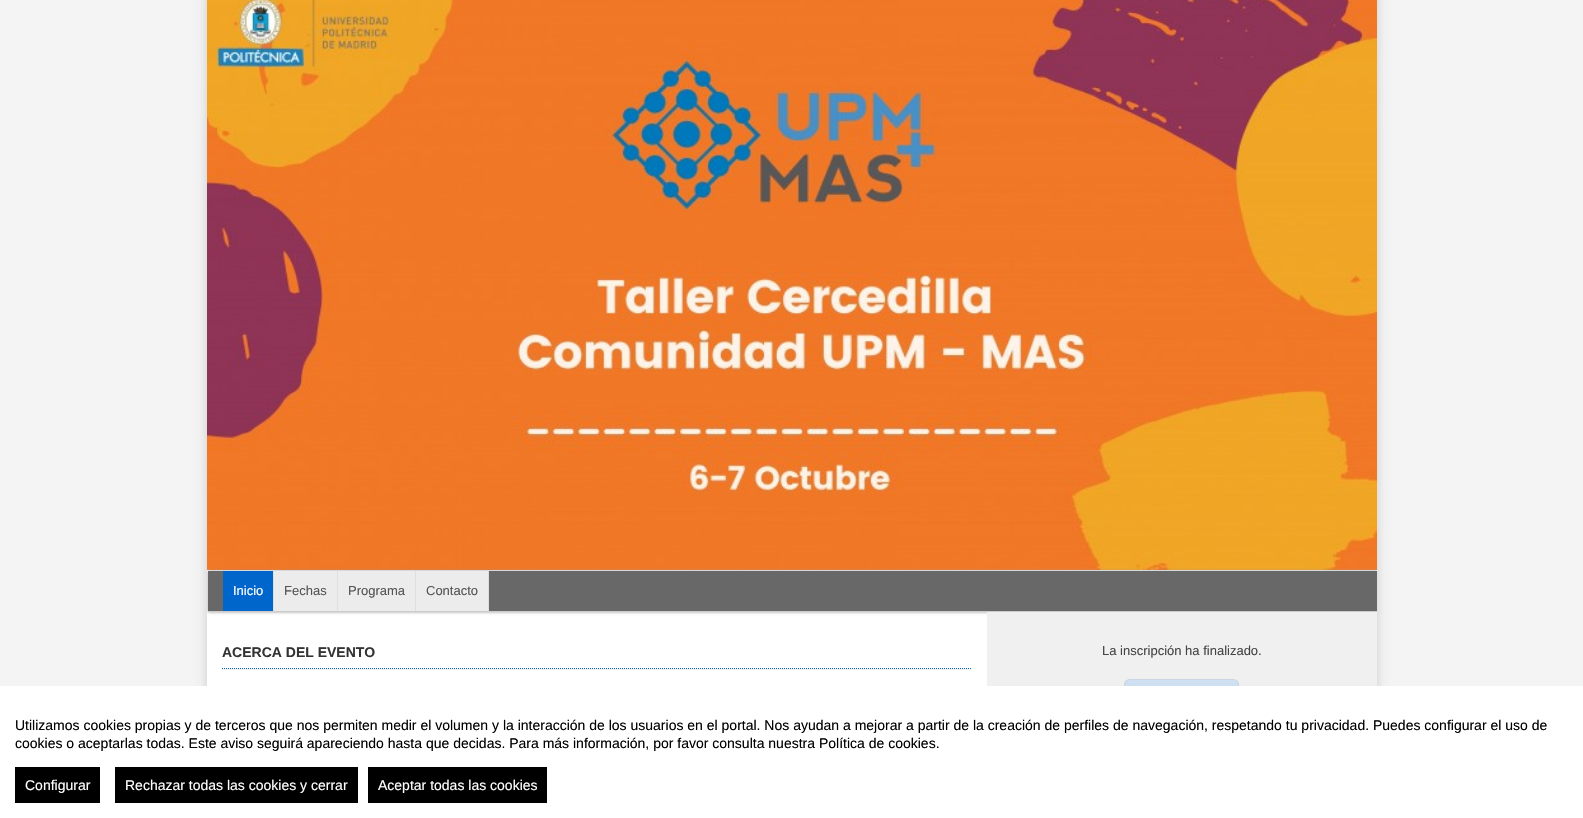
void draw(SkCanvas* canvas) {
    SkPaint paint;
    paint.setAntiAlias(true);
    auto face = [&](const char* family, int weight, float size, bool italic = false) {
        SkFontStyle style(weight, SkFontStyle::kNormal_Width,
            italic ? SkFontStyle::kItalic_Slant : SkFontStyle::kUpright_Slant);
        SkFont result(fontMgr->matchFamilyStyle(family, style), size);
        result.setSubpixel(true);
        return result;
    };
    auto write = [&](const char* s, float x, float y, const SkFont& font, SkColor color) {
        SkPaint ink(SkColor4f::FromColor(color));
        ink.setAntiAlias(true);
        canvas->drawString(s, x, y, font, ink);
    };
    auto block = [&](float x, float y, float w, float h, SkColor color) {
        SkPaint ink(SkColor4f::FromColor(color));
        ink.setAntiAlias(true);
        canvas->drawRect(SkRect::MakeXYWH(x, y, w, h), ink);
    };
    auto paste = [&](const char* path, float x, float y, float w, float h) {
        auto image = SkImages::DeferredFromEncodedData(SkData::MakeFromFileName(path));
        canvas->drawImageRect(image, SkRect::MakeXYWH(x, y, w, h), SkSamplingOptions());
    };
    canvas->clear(SkColorSetRGB(244, 244, 244));
    paint.setColor(SkColorSetRGB(204, 204, 204));
    paint.setMaskFilter(SkMaskFilter::MakeBlur(kNormal_SkBlurStyle, 6));
    canvas->drawRoundRect(SkRect::MakeXYWH(207, -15, 1170, 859), 8, 8, paint);
    paint.setMaskFilter(nullptr);
    block(207, 570, 1170, 116, SK_ColorWHITE);
    paste("pic1.png", 207, 0, 1170, 570);
    block(208, 571, 1169, 40, SkColorSetRGB(104, 104, 104));
    canvas->save();
    canvas->clipPath(SkPathBuilder().moveTo(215, -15).lineTo(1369, -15).cubicTo(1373.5f, -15, 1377, -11.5f, 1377, -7).lineTo(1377, 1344).cubicTo(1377, 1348.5f, 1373.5f, 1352, 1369, 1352).lineTo(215, 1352).cubicTo(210.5f, 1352, 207, 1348.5f, 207, 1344).lineTo(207, -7).cubicTo(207, -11.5f, 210.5f, -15, 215, -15).close().detach(), true);
    canvas->clipPath(SkPathBuilder(SkPathFillType::kEvenOdd).moveTo(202, 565).lineTo(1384, 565).lineTo(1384, 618).lineTo(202, 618).close().moveTo(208, 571).lineTo(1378, 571).lineTo(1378, 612).lineTo(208, 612).close().detach(), true);
    paint.setColor(SkColorSetRGB(153, 153, 153));
    paint.setMaskFilter(SkMaskFilter::MakeBlur(kNormal_SkBlurStyle, 1.5f));
    canvas->drawRect(SkRect::MakeXYWH(208, 571, 1170, 41), paint);
    paint.setMaskFilter(nullptr);
    canvas->restore();
    block(208, 611, 1169, 1, SkColorSetRGB(204, 204, 204));
    block(223, 571, 50, 40, SkColorSetRGB(0, 102, 204));
    block(273, 571, 1, 40, SkColorSetRGB(223, 223, 223));
    auto kFont1 = face("Liberation Sans", 400, 13);
    write("Inicio", 233, 595, kFont1, SK_ColorWHITE);
    block(274, 571, 63, 40, SkColorSetRGB(236, 236, 236));
    block(337, 571, 1, 40, SkColorSetRGB(223, 223, 223));
    write("Fechas", 284, 595, kFont1, SkColorSetRGB(84, 84, 84));
    block(338, 571, 77, 40, SkColorSetRGB(236, 236, 236));
    block(415, 571, 1, 40, SkColorSetRGB(223, 223, 223));
    write("Programa", 348, 595, kFont1, SkColorSetRGB(84, 84, 84));
    block(416, 571, 72, 40, SkColorSetRGB(236, 236, 236));
    block(488, 571, 1, 40, SkColorSetRGB(223, 223, 223));
    write("Contacto", 426, 595, kFont1, SkColorSetRGB(84, 84, 84));
    block(222, 669, 750, 1, SkColorSetRGB(240, 240, 240));
    paint.setStyle(SkPaint::kStroke_Style);
    paint.setStrokeWidth(1);
    paint.setColor(SkColorSetRGB(0, 102, 204));
    paint.setPathEffect(SkDashPathEffect::Make({{1, 1}}, 0));
    canvas->drawPath(SkPathBuilder().moveTo(222, 668.5f).lineTo(972, 668.5f).detach(), paint);
    paint.setPathEffect(nullptr);
    auto kFont2 = face("Liberation Sans", 700, 14);
    write("ACERCA DEL EVENTO", 222, 657, kFont2, SkColorSetRGB(51, 51, 51));
    block(987, 612, 390, 74, SkColorSetRGB(240, 240, 240));
    write("La inscripción ha finalizado.", 1102, 655, kFont1, SkColorSetRGB(69, 69, 69));
    paint.setStyle(SkPaint::kFill_Style);
    paint.setColor(SkColorSetRGB(234, 234, 234));
    paint.setMaskFilter(SkMaskFilter::MakeBlur(kNormal_SkBlurStyle, 1));
    canvas->drawRoundRect(SkRect::MakeXYWH(1124, 680, 115, 40), 6, 6, paint);
    paint.setMaskFilter(nullptr);
    canvas->save();
    canvas->clipPath(SkPathBuilder().moveTo(1130, 679).lineTo(1233, 679).cubicTo(1236.5f, 679, 1239, 681.5f, 1239, 685).lineTo(1239, 713).cubicTo(1239, 716.5f, 1236.5f, 719, 1233, 719).lineTo(1130, 719).cubicTo(1126.5f, 719, 1124, 716.5f, 1124, 713).lineTo(1124, 685).cubicTo(1124, 681.5f, 1126.5f, 679, 1130, 679).close().detach(), true);
    {
        const SkColor colors[] = {SkColorSetRGB(206, 224, 242), SkColorSetRGB(202, 218, 234)};
        const float stops[] = {0, 1};
        const SkPoint ends[] = {{1182, 680}, {1182, 718}};
        paint.setShader(SkGradientShader::MakeLinear(ends, colors, stops, 2, SkTileMode::kClamp));
        paint.setAlpha(255);
    }
    canvas->drawRect(SkRect::MakeXYWH(1124, 680, 115, 6), paint);
    canvas->restore();
    paint.setStyle(SkPaint::kStroke_Style);
    paint.setShader(nullptr);
    paint.setColor(SkColorSetRGB(202, 214, 226));
    canvas->drawRoundRect(SkRect::MakeXYWH(1124.5f, 679.5f, 114, 39), 5.5f, 5.5f, paint);
    block(0, 686, 1583, 132, SK_ColorWHITE);
    auto kFont3 = face("Liberation Sans", 400, 14);
    write("Utilizamos cookies propias y de terceros que nos permiten medir el volumen y la interacción de los usuarios en el portal. Nos ayudan a mejorar a partir de la creación de perfiles de navegación, respetando tu privacidad. Puedes configurar el uso de", 15, 730, kFont3, SK_ColorBLACK);
    write("cookies o aceptarlas todas. Este aviso seguirá apareciendo hasta que decidas. Para más información, por favor consulta nuestra Política de cookies.", 15, 748, kFont3, SK_ColorBLACK);
    block(15, 767, 85, 36, SK_ColorBLACK);
    write("Configurar", 25, 790, kFont3, SK_ColorWHITE);
    block(115, 767, 243, 36, SK_ColorBLACK);
    write("Rechazar todas las cookies y cerrar", 125, 790, kFont3, SK_ColorWHITE);
    block(368, 767, 179, 36, SK_ColorBLACK);
    write("Aceptar todas las cookies", 378, 790, kFont3, SK_ColorWHITE);
}
